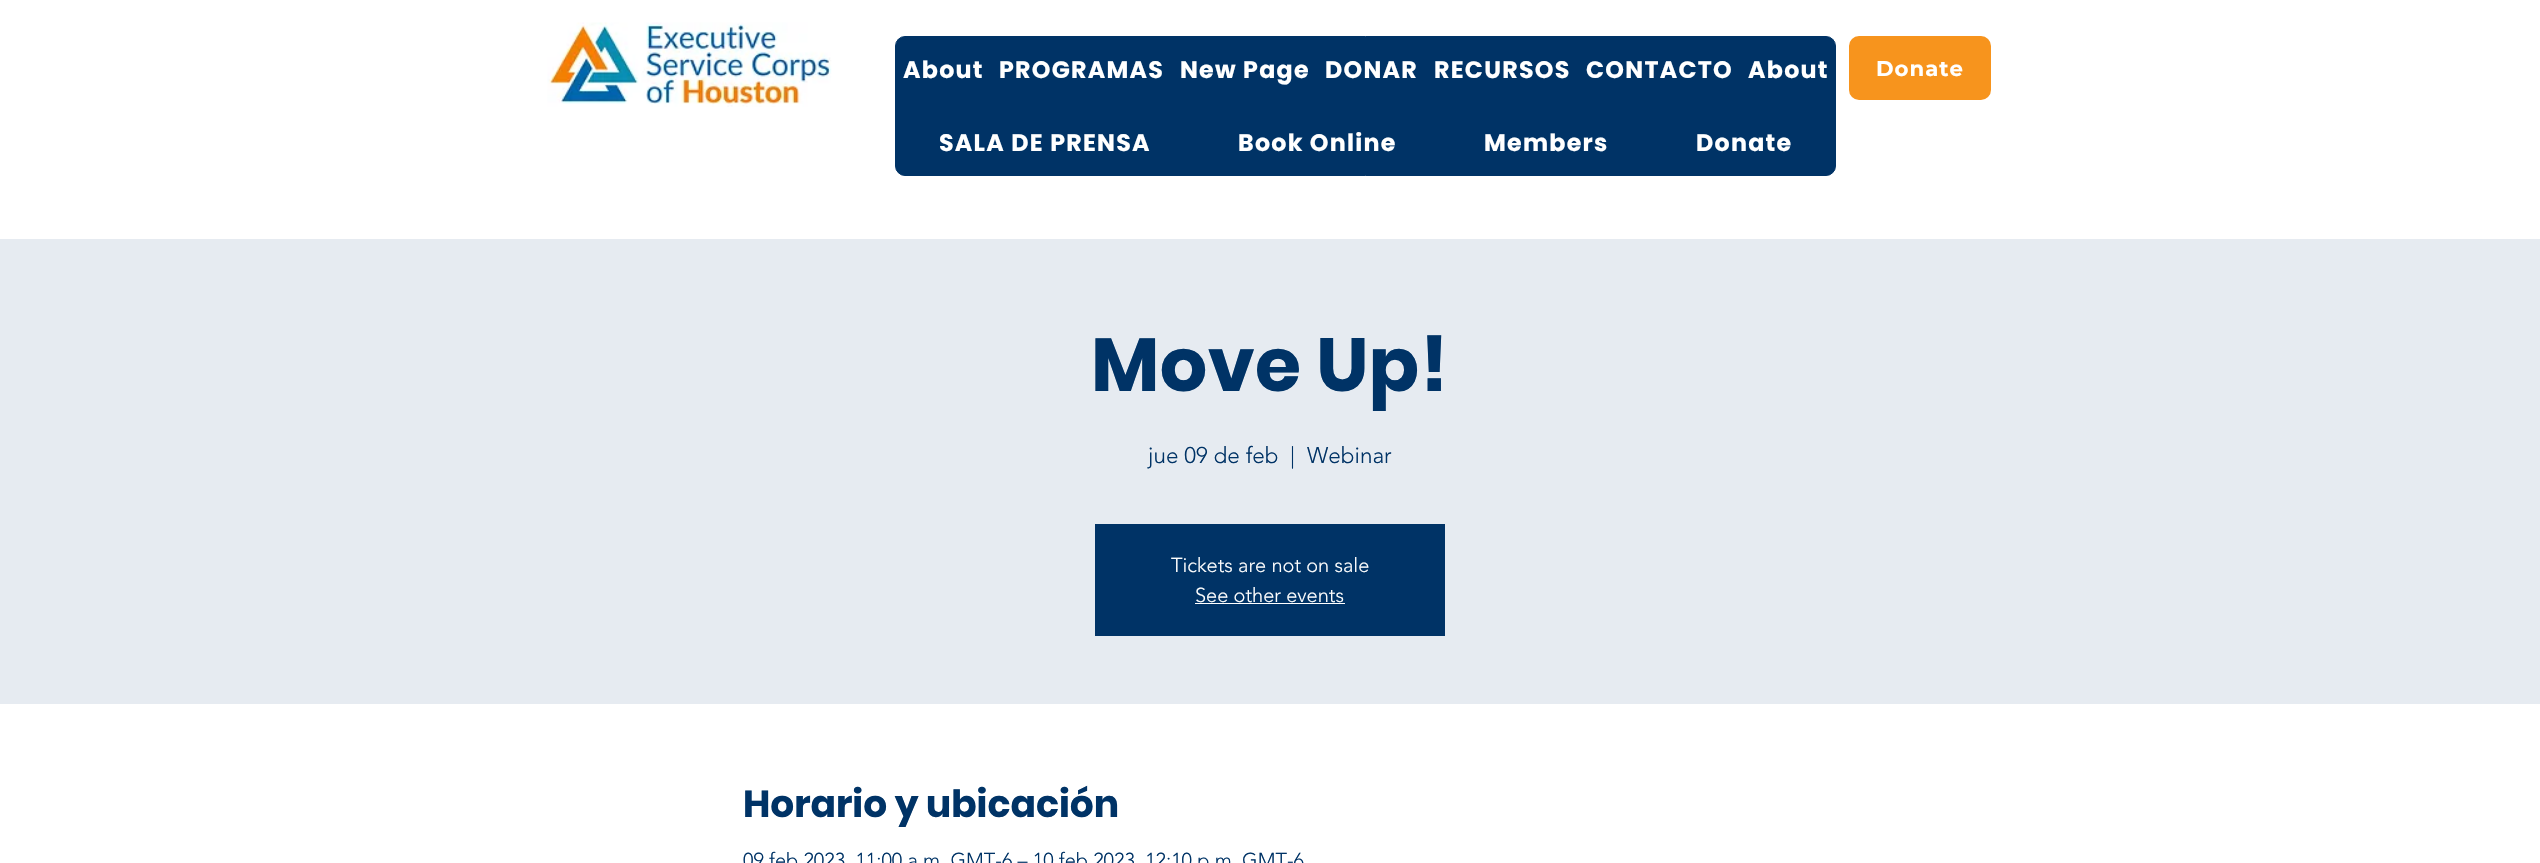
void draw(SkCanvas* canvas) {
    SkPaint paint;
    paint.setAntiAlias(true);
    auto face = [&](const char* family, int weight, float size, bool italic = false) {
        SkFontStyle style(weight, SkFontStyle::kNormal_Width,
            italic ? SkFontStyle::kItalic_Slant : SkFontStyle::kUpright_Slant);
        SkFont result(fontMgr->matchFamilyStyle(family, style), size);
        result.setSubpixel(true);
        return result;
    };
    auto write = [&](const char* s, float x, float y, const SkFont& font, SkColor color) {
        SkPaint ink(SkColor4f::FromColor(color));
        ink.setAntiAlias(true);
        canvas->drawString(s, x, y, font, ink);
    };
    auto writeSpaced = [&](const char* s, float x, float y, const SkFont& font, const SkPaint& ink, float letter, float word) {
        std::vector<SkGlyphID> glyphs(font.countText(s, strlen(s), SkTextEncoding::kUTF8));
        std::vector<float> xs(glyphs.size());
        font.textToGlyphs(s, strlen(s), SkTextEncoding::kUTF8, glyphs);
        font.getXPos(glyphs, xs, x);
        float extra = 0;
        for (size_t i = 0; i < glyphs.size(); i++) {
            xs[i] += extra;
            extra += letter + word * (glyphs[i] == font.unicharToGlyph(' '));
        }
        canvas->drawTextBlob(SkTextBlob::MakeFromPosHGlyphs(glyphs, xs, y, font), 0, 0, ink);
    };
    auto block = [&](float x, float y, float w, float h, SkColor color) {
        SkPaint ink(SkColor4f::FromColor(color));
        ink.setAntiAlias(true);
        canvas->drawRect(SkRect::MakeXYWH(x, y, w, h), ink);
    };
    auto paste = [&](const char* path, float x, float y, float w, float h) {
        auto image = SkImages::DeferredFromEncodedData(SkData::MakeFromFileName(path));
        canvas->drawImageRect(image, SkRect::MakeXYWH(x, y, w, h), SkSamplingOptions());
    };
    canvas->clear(SK_ColorWHITE);
    paste("pic1.png", 547, 22, 285, 85);
    paint.setColor(SkColorSetRGB(0, 51, 102));
    canvas->drawRoundRect(SkRect::MakeXYWH(895.5f, 36.5f, 940, 139), 9.5f, 9.5f, paint);
    paint.setStyle(SkPaint::kStroke_Style);
    paint.setStrokeWidth(1);
    canvas->drawRoundRect(SkRect::MakeXYWH(895.5f, 36.5f, 940, 139), 9.5f, 9.5f, paint);
    auto kFont1 = face("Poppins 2", 700, 23.75f);
    paint.setStyle(SkPaint::kFill_Style);
    paint.setColor(SK_ColorWHITE);
    writeSpaced("About", 903, 78, kFont1, paint, 1.25f, 0);
    writeSpaced("PROGRAMAS", 999, 78, kFont1, paint, 1.25f, 0);
    writeSpaced("New Page", 1180, 78, kFont1, paint, 1.25f, 0);
    writeSpaced("DONAR", 1325, 78, kFont1, paint, 1.25f, 0);
    writeSpaced("RECURSOS", 1434, 78, kFont1, paint, 1.25f, 0);
    writeSpaced("CONTACTO", 1586, 78, kFont1, paint, 1.25f, 0);
    writeSpaced("About", 1748, 78, kFont1, paint, 1.25f, 0);
    writeSpaced("SALA DE PRENSA", 939, 151, kFont1, paint, 1.25f, 0);
    writeSpaced("Book Online", 1238, 151, kFont1, paint, 1.25f, 0);
    writeSpaced("Members", 1484, 151, kFont1, paint, 1.25f, 0);
    writeSpaced("Donate", 1696, 151, kFont1, paint, 1.25f, 0);
    paint.setColor(SkColorSetRGB(247, 148, 29));
    canvas->drawRoundRect(SkRect::MakeXYWH(1850.5f, 37.5f, 139, 61), 8.5f, 8.5f, paint);
    paint.setStyle(SkPaint::kStroke_Style);
    paint.setStrokeWidth(3);
    canvas->drawRoundRect(SkRect::MakeXYWH(1850.5f, 37.5f, 139, 61), 8.5f, 8.5f, paint);
    auto kFont2 = face("Montserrat", 700, 21.25f);
    paint.setStyle(SkPaint::kFill_Style);
    paint.setColor(SK_ColorWHITE);
    writeSpaced("Donate", 1876, 76, kFont2, paint, 1, 0);
    block(0, 239, 2540, 465, SkColorSetRGB(230, 235, 241));
    auto kFont3 = face("Poppins", 700, 75);
    write("Move Up!", 1091, 391, kFont3, SkColorSetRGB(0, 51, 102));
    auto kFont4 = face("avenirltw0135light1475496", 300, 22.5f);
    write("jue 09 de feb", 1148, 463, kFont4, SkColorSetRGB(0, 51, 102));
    write("|", 1290, 463, kFont4, SkColorSetRGB(0, 51, 102));
    write("Webinar", 1307, 463, kFont4, SkColorSetRGB(0, 51, 102));
    block(1095, 524, 350, 112, SkColorSetRGB(0, 51, 102));
    auto kFont5 = face("avenirltw0135light1475496", 300, 20);
    write("Tickets are not on sale", 1171, 572, kFont5, SK_ColorWHITE);
    write("See other events", 1195, 602, kFont5, SK_ColorWHITE);
    block(1195, 603, 150, 1, SK_ColorWHITE);
    auto kFont6 = face("Poppins", 700, 37.5f);
    write("Horario y ubicación", 743, 817, kFont6, SkColorSetRGB(0, 51, 102));
    write("09 feb 2023, 11:00 a.m. GMT-6 – 10 feb 2023, 12:10 p.m. GMT-6", 743, 867, kFont5, SkColorSetRGB(0, 51, 102));
}
